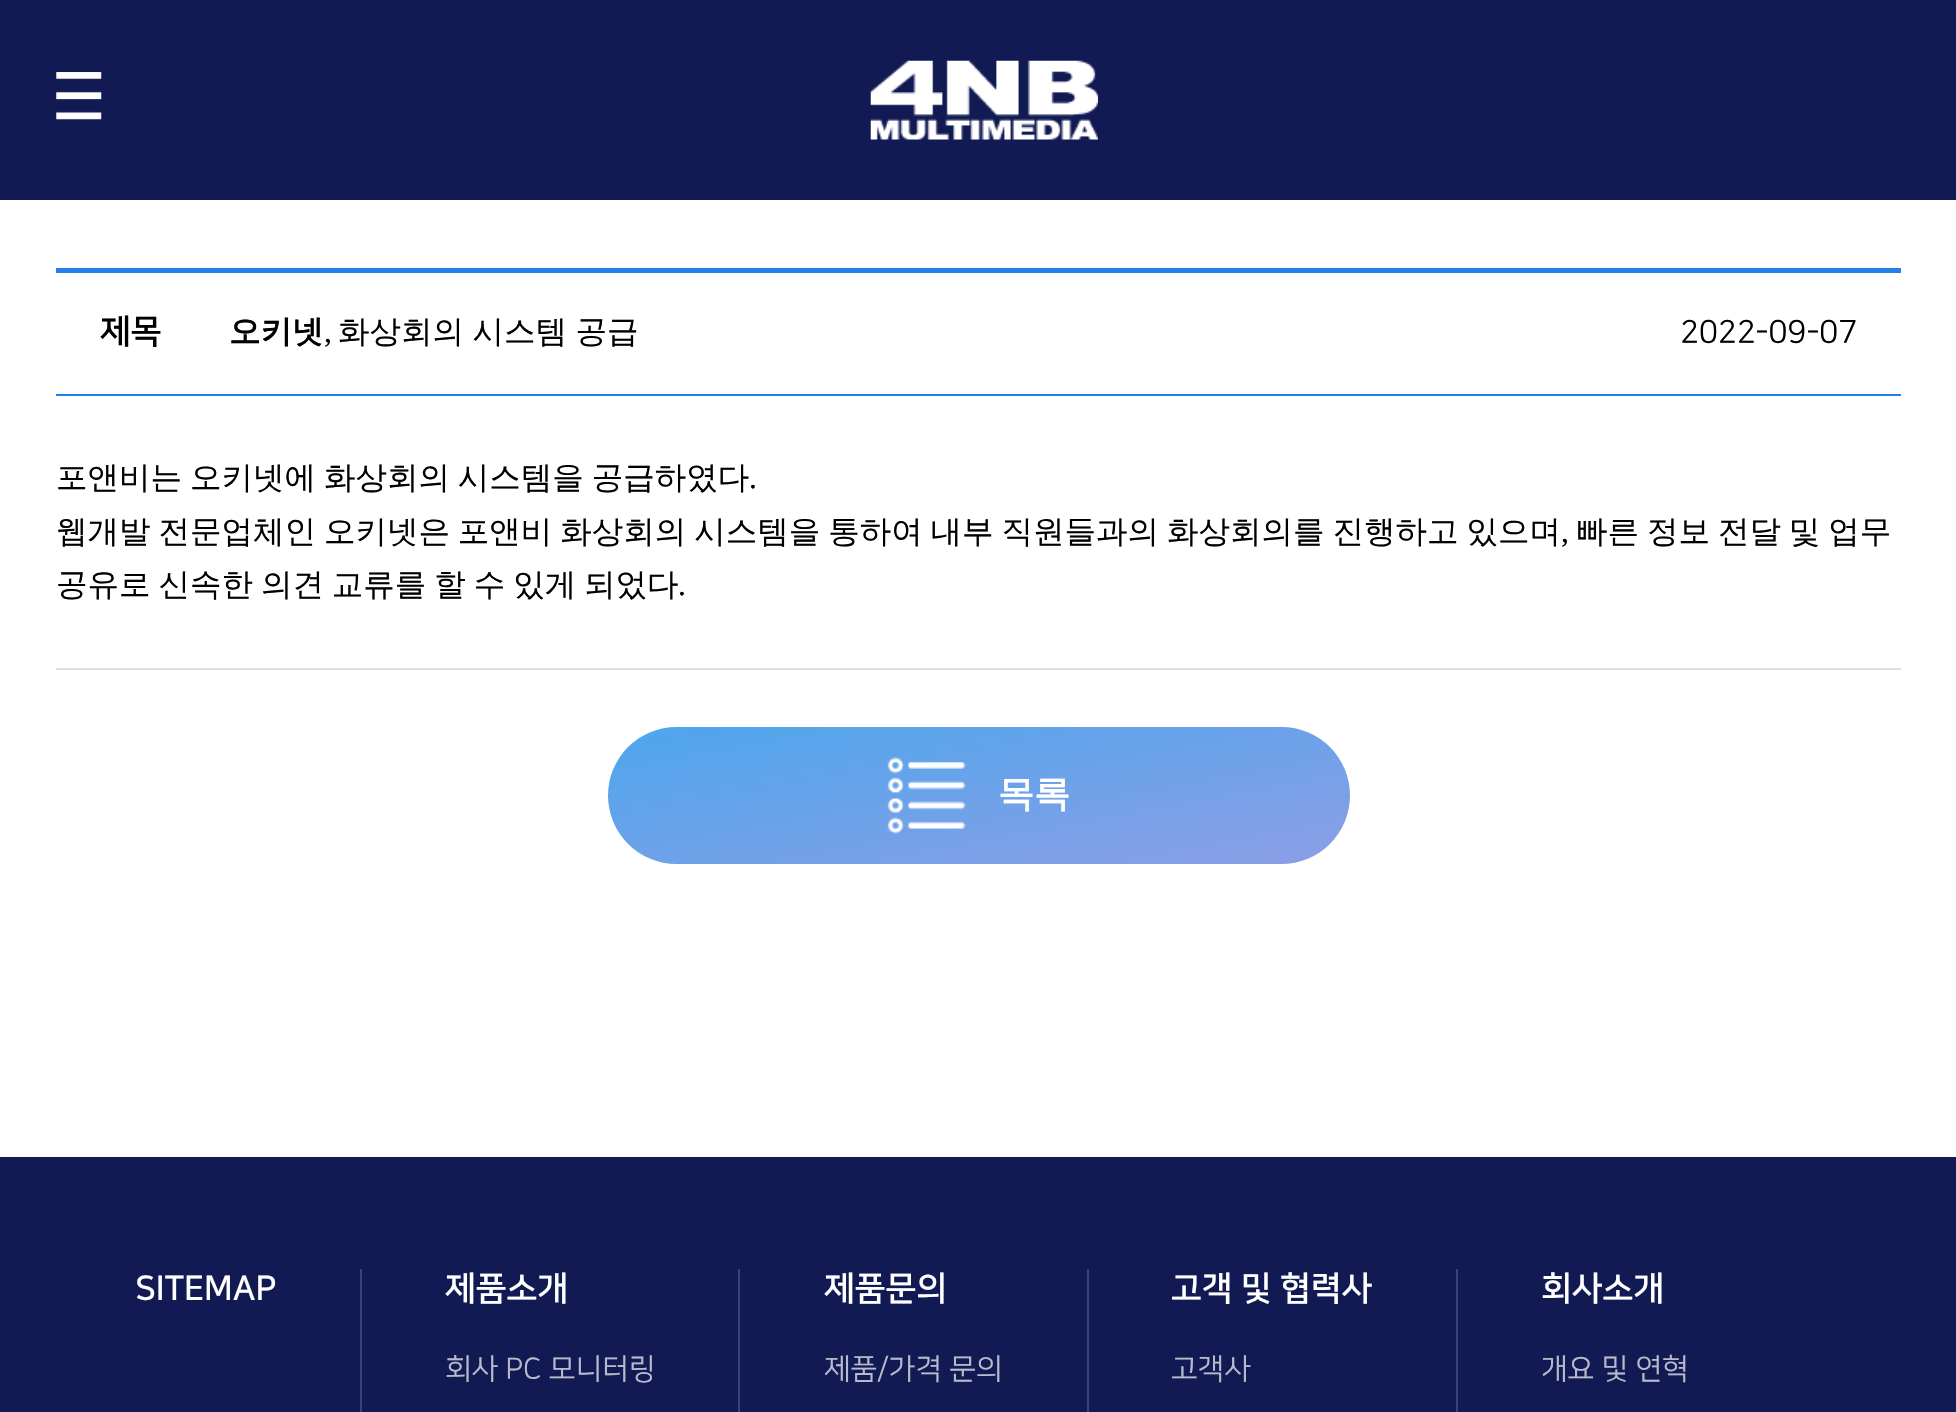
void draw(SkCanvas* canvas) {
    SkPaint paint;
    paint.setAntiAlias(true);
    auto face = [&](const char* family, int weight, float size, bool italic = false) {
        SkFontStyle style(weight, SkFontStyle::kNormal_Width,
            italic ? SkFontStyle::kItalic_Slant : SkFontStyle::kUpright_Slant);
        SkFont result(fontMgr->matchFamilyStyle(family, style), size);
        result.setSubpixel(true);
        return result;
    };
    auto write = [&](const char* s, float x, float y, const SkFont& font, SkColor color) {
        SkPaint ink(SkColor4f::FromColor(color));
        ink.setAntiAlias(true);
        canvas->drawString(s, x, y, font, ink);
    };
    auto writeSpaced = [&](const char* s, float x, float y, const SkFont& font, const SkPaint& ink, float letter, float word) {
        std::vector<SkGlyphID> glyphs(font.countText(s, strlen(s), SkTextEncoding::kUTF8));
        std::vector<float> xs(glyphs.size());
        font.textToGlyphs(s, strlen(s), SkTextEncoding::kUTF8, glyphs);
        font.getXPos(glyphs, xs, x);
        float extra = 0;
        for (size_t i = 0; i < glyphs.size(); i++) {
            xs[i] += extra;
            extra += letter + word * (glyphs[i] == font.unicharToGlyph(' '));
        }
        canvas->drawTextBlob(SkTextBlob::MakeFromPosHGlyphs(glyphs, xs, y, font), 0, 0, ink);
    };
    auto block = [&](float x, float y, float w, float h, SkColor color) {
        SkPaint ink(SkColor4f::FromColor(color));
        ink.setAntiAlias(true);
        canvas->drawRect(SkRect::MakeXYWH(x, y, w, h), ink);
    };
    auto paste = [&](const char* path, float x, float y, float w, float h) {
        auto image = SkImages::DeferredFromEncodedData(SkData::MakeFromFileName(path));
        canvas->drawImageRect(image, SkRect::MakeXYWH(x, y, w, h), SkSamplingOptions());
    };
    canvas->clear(SK_ColorWHITE);
    block(0, 0, 1956, 200, SkColorSetRGB(17, 26, 83));
    paste("pic1.png", 56, 72, 46, 48);
    paste("pic2.png", 870, 60, 228, 80);
    block(56, 268, 1845, 5, SkColorSetRGB(38, 128, 235));
    block(56, 394, 1845, 2, SkColorSetRGB(38, 128, 235));
    auto kFont1 = face("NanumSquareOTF", 700, 33.75f);
    write("제목", 100, 342, kFont1, SK_ColorBLACK);
    auto kFont2 = face("WenQuanYi Zen Hei", 700, 31.5f);
    write("오키넷", 229, 342, kFont2, SK_ColorBLACK);
    auto kFont3 = face("Liberation Serif", 400, 31.5f);
    write(",", 324, 342, kFont3, SK_ColorBLACK);
    auto kFont4 = face("WenQuanYi Zen Hei", 500, 31.5f);
    paint.setColor(SK_ColorBLACK);
    writeSpaced("화상회의 시스템 공급", 338, 342, kFont4, paint, 0, -1);
    auto kFont5 = face("NanumSquareOTF", 400, 31.5f);
    write("2022-09-07", 1680, 342, kFont5, SK_ColorBLACK);
    block(56, 668, 1845, 2, SkColorSetRGB(221, 221, 221));
    writeSpaced("포앤비는 오키넷에 화상회의 시스템을 공급하였다", 56, 488, kFont4, paint, 0, -1.5f);
    write(".", 749, 488, kFont3, SK_ColorBLACK);
    writeSpaced("웹개발 전문업체인 오키넷은 포앤비 화상회의 시스템을 통하여 내부 직원들과의 화상회의를 진행하고 있으며", 56, 542, kFont4, paint, 0, -1.5f);
    write(",", 1561, 542, kFont3, SK_ColorBLACK);
    writeSpaced("빠른 정보 전달 및 업무", 1576, 542, kFont4, paint, 0, -1.5f);
    writeSpaced("공유로 신속한 의견 교류를 할 수 있게 되었다", 56, 595, kFont4, paint, 0, -1.5f);
    write(".", 678, 595, kFont3, SK_ColorBLACK);
    {
        const SkColor colors[] = {SkColorSetRGB(77, 166, 236), SkColorSetRGB(140, 158, 230)};
        const float stops[] = {0, 1};
        const SkPoint ends[] = {{954, 663}, {1003, 928}};
        paint.setShader(SkGradientShader::MakeLinear(ends, colors, stops, 2, SkTileMode::kClamp));
        paint.setAlpha(255);
    }
    canvas->drawRoundRect(SkRect::MakeXYWH(608, 727, 742, 137), 68.5f, 68.5f, paint);
    paste("pic3.png", 887, 757, 79, 77);
    auto kFont6 = face("WenQuanYi Zen Hei", 700, 36);
    write("목록", 998, 806, kFont6, SK_ColorWHITE);
    block(0, 1157, 1956, 255, SkColorSetRGB(17, 26, 83));
    write("SITEMAP", 135, 1299, kFont1, SK_ColorWHITE);
    block(360, 1269, 2, 143, SkColorSetRGB(56, 66, 130));
    write("제품소개", 445, 1299, kFont1, SK_ColorWHITE);
    auto kFont7 = face("NanumSquareOTF", 400, 29.25f);
    write("회사 PC 모니터링", 445, 1378, kFont7, SkColorSetRGB(184, 186, 203));
    block(738, 1269, 2, 143, SkColorSetRGB(56, 66, 130));
    write("제품문의", 824, 1299, kFont1, SK_ColorWHITE);
    write("제품/가격 문의", 824, 1378, kFont7, SkColorSetRGB(184, 186, 203));
    block(1087, 1269, 2, 143, SkColorSetRGB(56, 66, 130));
    write("고객 및 협력사", 1171, 1299, kFont1, SK_ColorWHITE);
    write("고객사", 1171, 1378, kFont7, SkColorSetRGB(184, 186, 203));
    block(1456, 1269, 2, 143, SkColorSetRGB(56, 66, 130));
    write("회사소개", 1541, 1299, kFont1, SK_ColorWHITE);
    write("개요 및 연혁", 1541, 1378, kFont7, SkColorSetRGB(184, 186, 203));
}
